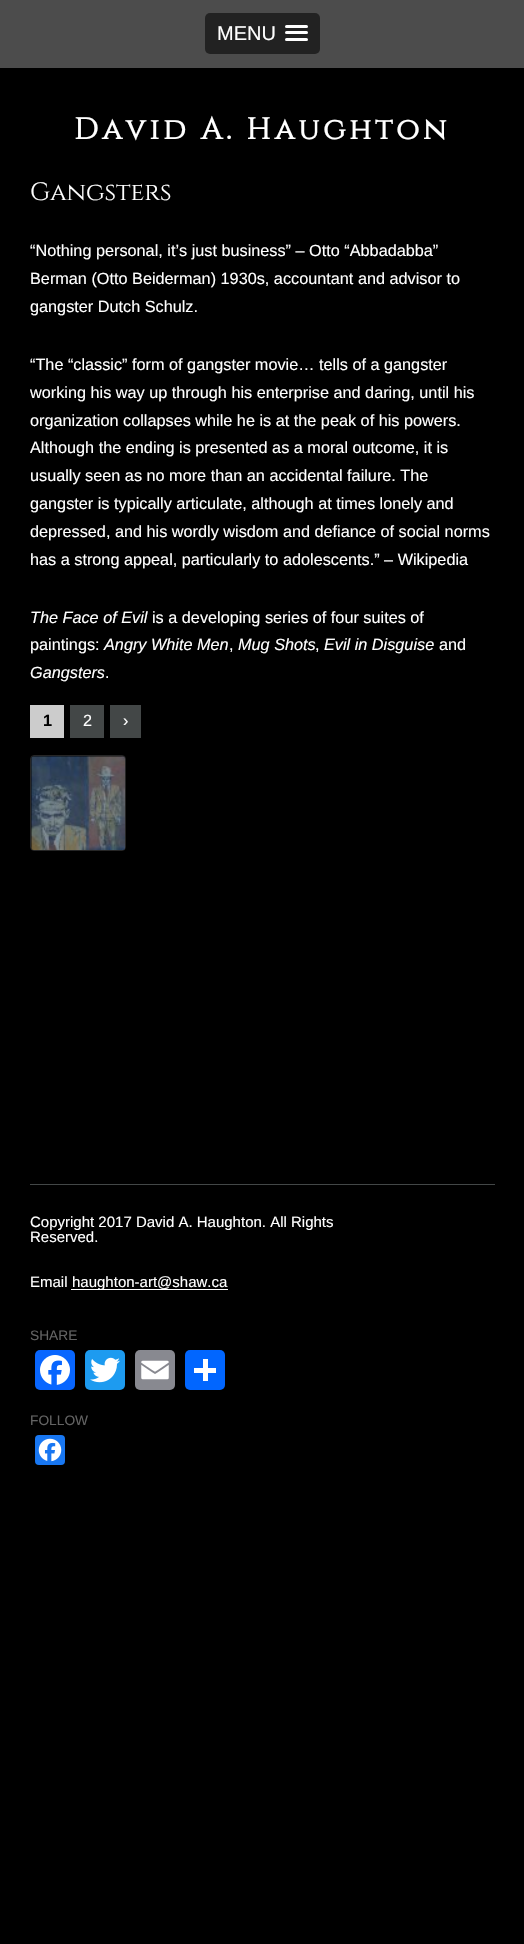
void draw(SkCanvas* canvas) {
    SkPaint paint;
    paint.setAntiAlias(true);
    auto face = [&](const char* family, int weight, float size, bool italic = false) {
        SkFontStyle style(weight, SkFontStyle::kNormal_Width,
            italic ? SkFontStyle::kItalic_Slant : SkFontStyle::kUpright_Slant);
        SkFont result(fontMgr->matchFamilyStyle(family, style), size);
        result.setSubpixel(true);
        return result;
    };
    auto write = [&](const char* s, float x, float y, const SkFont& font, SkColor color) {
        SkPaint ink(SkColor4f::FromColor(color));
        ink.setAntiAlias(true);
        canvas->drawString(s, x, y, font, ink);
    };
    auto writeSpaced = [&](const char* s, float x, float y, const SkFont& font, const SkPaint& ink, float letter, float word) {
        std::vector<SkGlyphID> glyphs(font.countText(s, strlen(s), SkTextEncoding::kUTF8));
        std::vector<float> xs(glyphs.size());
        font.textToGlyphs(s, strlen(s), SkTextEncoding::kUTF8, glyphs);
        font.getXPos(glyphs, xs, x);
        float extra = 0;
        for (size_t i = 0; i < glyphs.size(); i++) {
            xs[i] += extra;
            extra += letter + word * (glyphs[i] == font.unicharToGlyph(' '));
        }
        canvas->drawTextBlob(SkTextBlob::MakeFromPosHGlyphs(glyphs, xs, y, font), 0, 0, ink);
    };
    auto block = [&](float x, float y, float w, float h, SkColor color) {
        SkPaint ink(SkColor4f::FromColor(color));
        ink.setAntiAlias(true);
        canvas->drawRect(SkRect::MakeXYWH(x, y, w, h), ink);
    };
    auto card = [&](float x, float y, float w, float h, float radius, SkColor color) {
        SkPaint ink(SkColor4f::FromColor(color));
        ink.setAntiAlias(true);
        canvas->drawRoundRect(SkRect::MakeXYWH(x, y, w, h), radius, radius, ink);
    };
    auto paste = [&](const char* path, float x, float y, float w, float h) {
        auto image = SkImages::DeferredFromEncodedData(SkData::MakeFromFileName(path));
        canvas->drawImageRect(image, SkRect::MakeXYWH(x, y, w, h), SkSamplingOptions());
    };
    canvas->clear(SK_ColorBLACK);
    block(0, 0, 524, 68, SkColorSetRGB(76, 76, 76));
    card(205, 13, 115, 41, 5, SkColorSetRGB(34, 34, 34));
    auto kFont1 = face("Liberation Sans", 400, 20);
    write("MENU", 217, 40, kFont1, SK_ColorWHITE);
    card(285, 25, 23, 3, 1.5f, SK_ColorWHITE);
    card(285, 31, 23, 3, 1.5f, SK_ColorWHITE);
    card(285, 38, 23, 3, 1.5f, SK_ColorWHITE);
    auto kFont2 = face("Cinzel", 700, 30);
    paint.setColor(SK_ColorWHITE);
    writeSpaced("David A. Haughton", 74, 139, kFont2, paint, 3.75f, 0);
    auto kFont3 = face("Cinzel", 400, 25);
    write("Gangsters", 30, 200, kFont3, SK_ColorWHITE);
    auto kFont4 = face("Liberation Sans", 400, 16.25f);
    write("“Nothing personal, it’s just business” – Otto “Abbadabba”", 30, 256, kFont4, SK_ColorWHITE);
    write("Berman (Otto Beiderman) 1930s, accountant and advisor to", 30, 284, kFont4, SK_ColorWHITE);
    write("gangster Dutch Schulz.", 30, 312, kFont4, SK_ColorWHITE);
    write("“The “classic” form of gangster movie… tells of a gangster", 30, 370, kFont4, SK_ColorWHITE);
    write("working his way up through his enterprise and daring, until his", 30, 398, kFont4, SK_ColorWHITE);
    write("organization collapses while he is at the peak of his powers.", 30, 426, kFont4, SK_ColorWHITE);
    write("Although the ending is presented as a moral outcome, it is", 30, 453, kFont4, SK_ColorWHITE);
    write("usually seen as no more than an accidental failure. The", 30, 481, kFont4, SK_ColorWHITE);
    write("gangster is typically articulate, although at times lonely and", 30, 509, kFont4, SK_ColorWHITE);
    write("depressed, and his wordly wisdom and defiance of social norms", 30, 537, kFont4, SK_ColorWHITE);
    write("has a strong appeal, particularly to adolescents.” – Wikipedia", 30, 565, kFont4, SK_ColorWHITE);
    auto kFont5 = face("Liberation Sans", 400, 16.25f, true);
    write("The Face of Evil", 30, 623, kFont5, SK_ColorWHITE);
    write("is a developing series of four suites of", 152, 623, kFont4, SK_ColorWHITE);
    write("paintings:", 30, 650, kFont4, SK_ColorWHITE);
    write("Angry White Men", 104, 650, kFont5, SK_ColorWHITE);
    write(",", 229, 650, kFont4, SK_ColorWHITE);
    write("Mug Shots", 238, 650, kFont5, SK_ColorWHITE);
    write(",", 315, 650, kFont4, SK_ColorWHITE);
    write("Evil in Disguise", 324, 650, kFont5, SK_ColorWHITE);
    write("and", 439, 650, kFont4, SK_ColorWHITE);
    write("Gangsters", 30, 678, kFont5, SK_ColorWHITE);
    write(".", 105, 678, kFont4, SK_ColorWHITE);
    block(30, 705, 34, 33, SkColorSetRGB(204, 204, 204));
    auto kFont6 = face("Liberation Sans", 700, 16.25f);
    write("1", 43, 726, kFont6, SK_ColorBLACK);
    block(70, 705, 34, 33, SkColorSetRGB(67, 71, 71));
    write("2", 83, 726, kFont4, SK_ColorWHITE);
    block(110, 705, 31, 33, SkColorSetRGB(67, 71, 71));
    write("›", 123, 726, kFont4, SK_ColorWHITE);
    paint.setStyle(SkPaint::kStroke_Style);
    paint.setStrokeWidth(1);
    paint.setColor(SkColorSetRGB(38, 38, 38));
    canvas->drawRoundRect(SkRect::MakeXYWH(30.5f, 755.5f, 95, 95), 3.5f, 3.5f, paint);
    paste("pic1.png", 31, 756, 94, 94);
    block(30, 1184, 465, 1, SkColorSetRGB(67, 71, 71));
    auto kFont7 = face("Liberation Sans", 400, 15);
    write("Copyright 2017 David A. Haughton. All Rights", 30, 1227, kFont7, SK_ColorWHITE);
    write("Reserved.", 30, 1242, kFont7, SK_ColorWHITE);
    write("Email", 30, 1287, kFont7, SK_ColorWHITE);
    block(71, 1289, 157, 1, SK_ColorWHITE);
    write("haughton-art@shaw.ca", 72, 1287, kFont7, SK_ColorWHITE);
    auto kFont8 = face("Liberation Sans", 400, 13.75f);
    write("SHARE", 30, 1340, kFont8, SkColorSetRGB(99, 99, 99));
    card(35, 1350, 40, 40, 5, SkColorSetRGB(8, 102, 255));
    paste("pic2.png", 40, 1355, 30, 30);
    card(85, 1350, 40, 40, 5, SkColorSetRGB(29, 155, 240));
    paste("pic3.png", 90, 1357, 30, 26);
    card(135, 1350, 40, 40, 5, SkColorSetRGB(136, 137, 144));
    paste("pic4.png", 141, 1360, 28, 20);
    card(185, 1350, 40, 40, 5, SkColorSetRGB(1, 102, 255));
    block(203, 1359, 5, 22, SK_ColorWHITE);
    block(194, 1368, 22, 5, SK_ColorWHITE);
    write("FOLLOW", 30, 1425, kFont8, SkColorSetRGB(99, 99, 99));
    card(35, 1435, 30, 30, 4, SkColorSetRGB(24, 119, 242));
    paste("pic5.png", 38, 1438, 24, 24);
}
